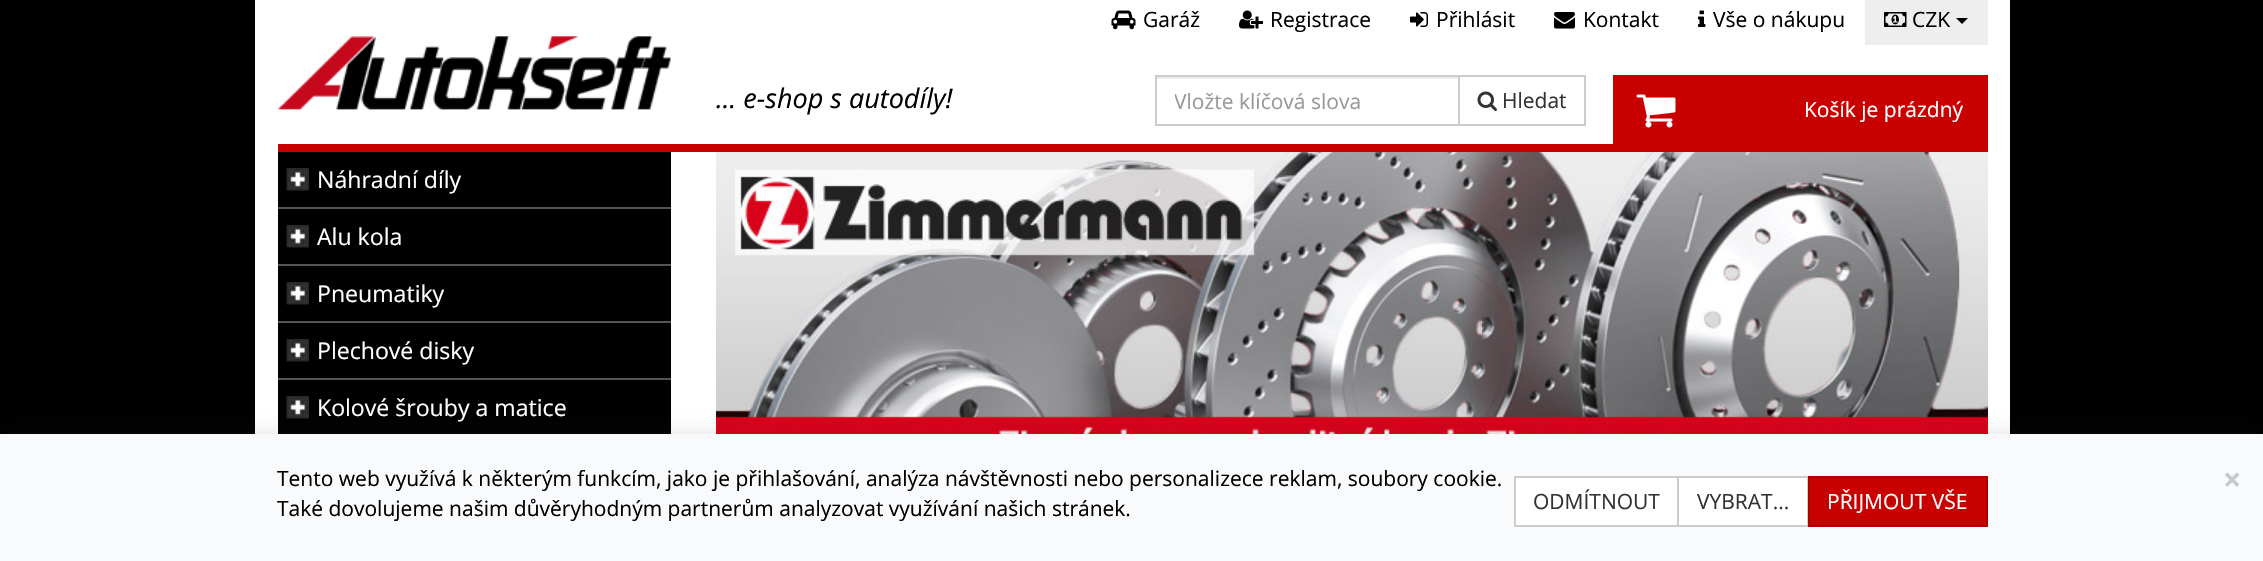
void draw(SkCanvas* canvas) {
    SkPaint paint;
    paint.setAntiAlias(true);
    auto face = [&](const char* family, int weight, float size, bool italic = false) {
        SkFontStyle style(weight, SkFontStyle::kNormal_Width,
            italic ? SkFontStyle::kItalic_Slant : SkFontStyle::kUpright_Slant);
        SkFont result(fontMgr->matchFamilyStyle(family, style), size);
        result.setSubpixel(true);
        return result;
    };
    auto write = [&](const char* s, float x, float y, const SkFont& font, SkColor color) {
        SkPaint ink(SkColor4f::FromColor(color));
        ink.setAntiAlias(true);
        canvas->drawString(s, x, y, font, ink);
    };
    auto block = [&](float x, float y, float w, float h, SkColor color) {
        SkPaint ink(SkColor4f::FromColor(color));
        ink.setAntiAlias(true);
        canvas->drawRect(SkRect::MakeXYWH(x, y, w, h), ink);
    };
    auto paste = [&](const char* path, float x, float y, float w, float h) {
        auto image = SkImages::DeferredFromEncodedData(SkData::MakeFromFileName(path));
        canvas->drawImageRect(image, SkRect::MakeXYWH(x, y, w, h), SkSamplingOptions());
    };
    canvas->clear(SK_ColorBLACK);
    block(255, 0, 1755, 434, SK_ColorWHITE);
    block(278, 144, 1710, 8, SkColorSetRGB(200, 0, 0));
    paste("pic1.png", 1111, 10, 25, 20);
    auto kFont1 = face("Open Sans", 400, 21);
    write("Garáž", 1143, 27, kFont1, SK_ColorBLACK);
    paste("pic2.png", 1239, 10, 24, 19);
    write("Registrace", 1270, 27, kFont1, SK_ColorBLACK);
    paste("pic3.png", 1410, 12, 18, 15);
    write("Přihlásit", 1436, 27, kFont1, SK_ColorBLACK);
    paste("pic4.png", 1554, 12, 21, 17);
    write("Kontakt", 1583, 27, kFont1, SK_ColorBLACK);
    paste("pic5.png", 1698, 10, 8, 17);
    write("Vše o nákupu", 1713, 27, kFont1, SK_ColorBLACK);
    block(1865, 0, 123, 45, SkColorSetRGB(238, 238, 238));
    paste("pic6.png", 1884, 12, 23, 15);
    write("CZK", 1912, 27, kFont1, SK_ColorBLACK);
    paint.setColor(SK_ColorBLACK);
    canvas->drawPath(SkPathBuilder().moveTo(1956, 18).lineTo(1968, 18).lineTo(1962, 24).close().detach(), paint);
    paste("pic7.png", 277, 36, 394, 74);
    auto kFont2 = face("Open Sans", 400, 27, true);
    write("... e-shop s autodíly!", 716, 108, kFont2, SK_ColorBLACK);
    block(1157, 77, 301, 2, SkColorSetRGB(236, 236, 236));
    paint.setStyle(SkPaint::kStroke_Style);
    paint.setStrokeWidth(2);
    paint.setColor(SkColorSetRGB(204, 204, 204));
    canvas->drawRect(SkRect::MakeXYWH(1156, 76, 303, 49), paint);
    canvas->save();
    canvas->clipRect(SkRect::MakeXYWH(1175, 87, 265, 29));
    write("Vložte klíčová slova", 1174, 109, kFont1, SkColorSetRGB(153, 153, 153));
    canvas->restore();
    canvas->drawRect(SkRect::MakeXYWH(1459, 76, 126, 49), paint);
    paste("pic8.png", 1477, 91, 20, 20);
    write("Hledat", 1502, 108, kFont1, SkColorSetRGB(51, 51, 51));
    block(1613, 75, 375, 69, SkColorSetRGB(200, 0, 0));
    paste("pic9.png", 1636, 94, 40, 34);
    write("Košík je prázdný", 1804, 117, kFont1, SK_ColorWHITE);
    block(278, 152, 393, 282, SK_ColorBLACK);
    block(278, 207, 393, 2, SkColorSetRGB(85, 85, 85));
    paste("pic10.png", 286, 168, 23, 23);
    auto kFont3 = face("Open Sans", 400, 23.1f);
    write("Náhradní díly", 317, 188, kFont3, SK_ColorWHITE);
    block(278, 264, 393, 2, SkColorSetRGB(85, 85, 85));
    paste("pic10.png", 286, 225, 23, 23);
    write("Alu kola", 317, 245, kFont3, SK_ColorWHITE);
    block(278, 321, 393, 2, SkColorSetRGB(85, 85, 85));
    paste("pic10.png", 286, 282, 23, 23);
    write("Pneumatiky", 317, 302, kFont3, SK_ColorWHITE);
    block(278, 378, 393, 2, SkColorSetRGB(85, 85, 85));
    paste("pic10.png", 286, 339, 23, 23);
    write("Plechové disky", 317, 359, kFont3, SK_ColorWHITE);
    paste("pic10.png", 286, 396, 23, 23);
    write("Kolové šrouby a matice", 317, 416, kFont3, SK_ColorWHITE);
    paste("pic11.png", 716, 152, 1272, 282);
    paint.setStyle(SkPaint::kFill_Style);
    paint.setColor(SkColorSetARGB(38, 55, 55, 55));
    paint.setMaskFilter(SkMaskFilter::MakeBlur(kNormal_SkBlurStyle, 11));
    canvas->drawRect(SkRect::MakeXYWH(0, 434, 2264, 127), paint);
    paint.setMaskFilter(nullptr);
    block(0, 434, 2263, 127, SkColorSetRGB(249, 250, 252));
    write("Tento web využívá k některým funkcím, jako je přihlašování, analýza návštěvnosti nebo personalizece reklam, soubory cookie.", 277, 486, kFont1, SK_ColorBLACK);
    write("Také dovolujeme našim důvěryhodným partnerům analyzovat využívání našich stránek.", 277, 516, kFont1, SK_ColorBLACK);
    paint.setColor(SK_ColorWHITE);
    canvas->drawRect(SkRect::MakeXYWH(1515, 477, 163, 49), paint);
    paint.setStyle(SkPaint::kStroke_Style);
    paint.setColor(SkColorSetRGB(204, 204, 204));
    canvas->drawRect(SkRect::MakeXYWH(1515, 477, 163, 49), paint);
    write("ODMÍTNOUT", 1533, 509, kFont1, SkColorSetRGB(51, 51, 51));
    paint.setStyle(SkPaint::kFill_Style);
    paint.setColor(SK_ColorWHITE);
    canvas->drawRect(SkRect::MakeXYWH(1678, 477, 130, 49), paint);
    paint.setStyle(SkPaint::kStroke_Style);
    paint.setColor(SkColorSetRGB(204, 204, 204));
    canvas->drawRect(SkRect::MakeXYWH(1678, 477, 130, 49), paint);
    write("VYBRAT...", 1697, 509, kFont1, SkColorSetRGB(51, 51, 51));
    paint.setStyle(SkPaint::kFill_Style);
    paint.setColor(SkColorSetRGB(200, 0, 0));
    canvas->drawRect(SkRect::MakeXYWH(1809, 477, 178, 49), paint);
    paint.setStyle(SkPaint::kStroke_Style);
    paint.setColor(SkColorSetRGB(175, 0, 0));
    canvas->drawRect(SkRect::MakeXYWH(1809, 477, 178, 49), paint);
    write("PŘIJMOUT VŠE", 1827, 509, kFont1, SK_ColorWHITE);
    auto kFont4 = face("Open Sans", 700, 32);
    write("×", 2223, 491, kFont4, SkColorSetRGB(199, 200, 202));
}
